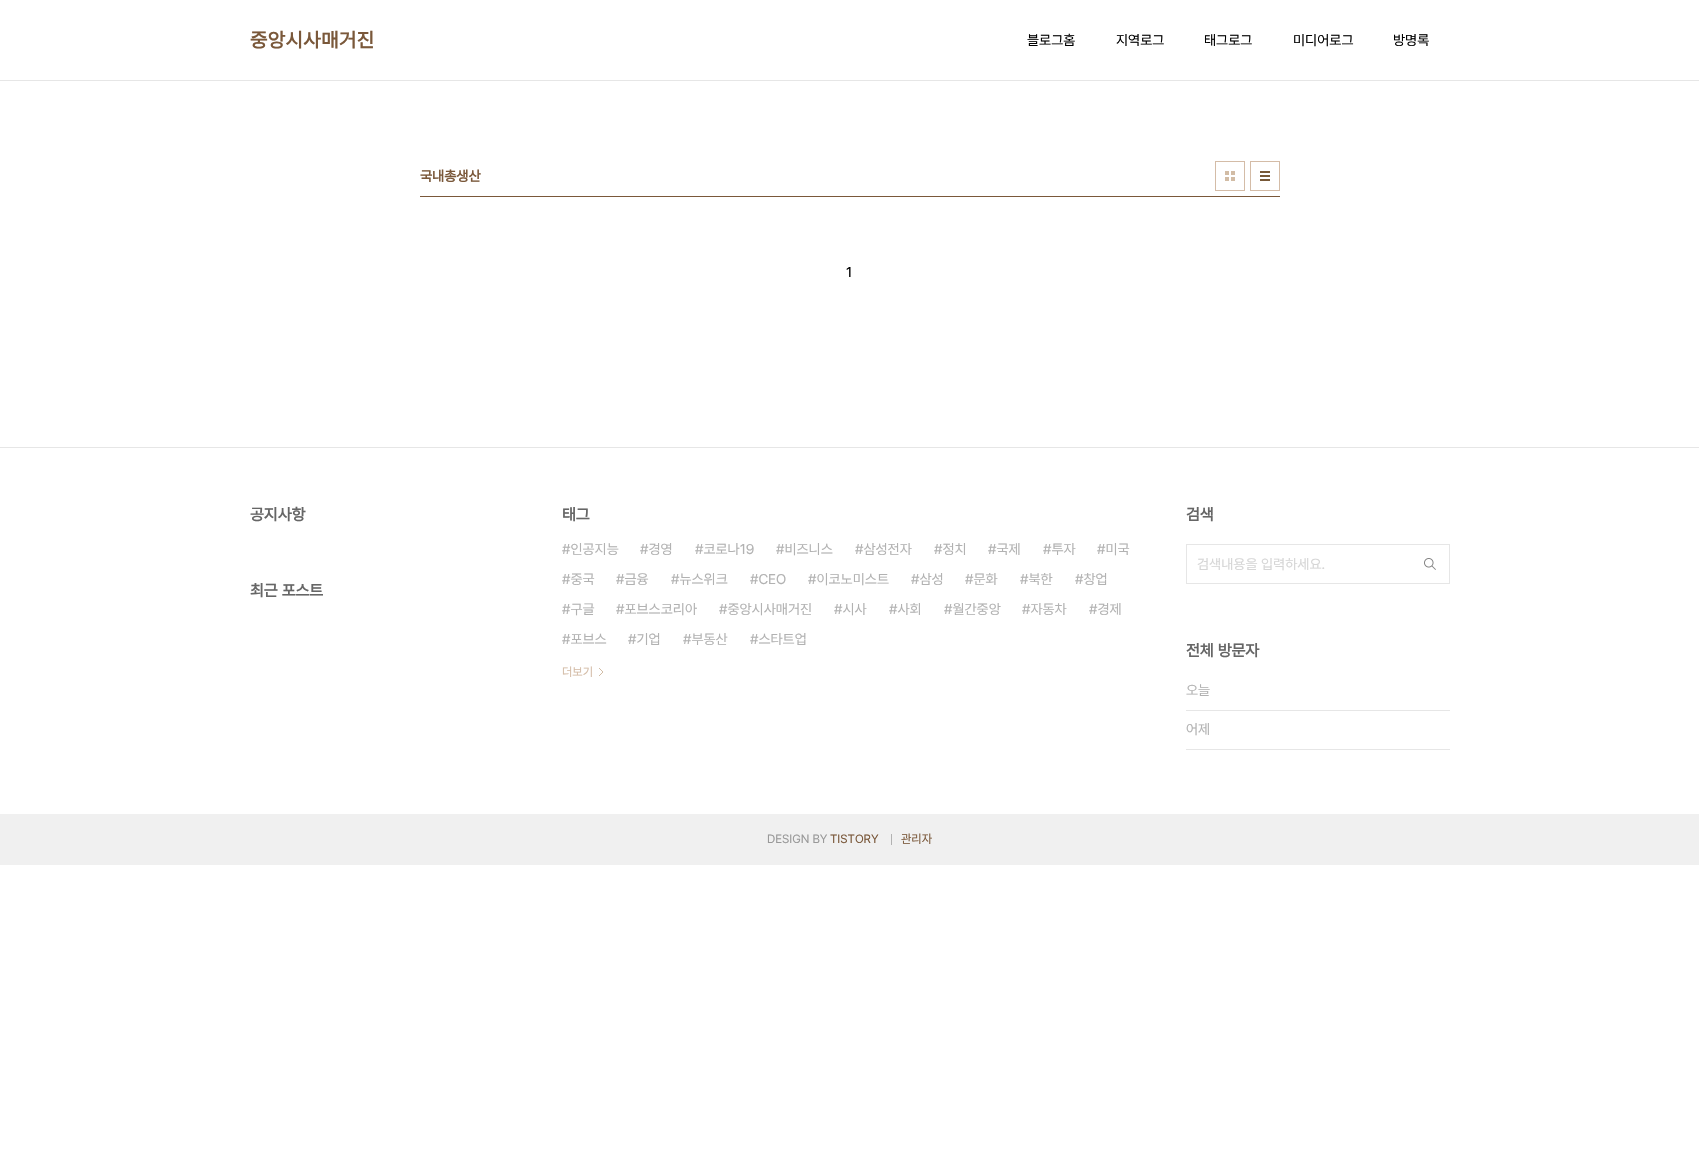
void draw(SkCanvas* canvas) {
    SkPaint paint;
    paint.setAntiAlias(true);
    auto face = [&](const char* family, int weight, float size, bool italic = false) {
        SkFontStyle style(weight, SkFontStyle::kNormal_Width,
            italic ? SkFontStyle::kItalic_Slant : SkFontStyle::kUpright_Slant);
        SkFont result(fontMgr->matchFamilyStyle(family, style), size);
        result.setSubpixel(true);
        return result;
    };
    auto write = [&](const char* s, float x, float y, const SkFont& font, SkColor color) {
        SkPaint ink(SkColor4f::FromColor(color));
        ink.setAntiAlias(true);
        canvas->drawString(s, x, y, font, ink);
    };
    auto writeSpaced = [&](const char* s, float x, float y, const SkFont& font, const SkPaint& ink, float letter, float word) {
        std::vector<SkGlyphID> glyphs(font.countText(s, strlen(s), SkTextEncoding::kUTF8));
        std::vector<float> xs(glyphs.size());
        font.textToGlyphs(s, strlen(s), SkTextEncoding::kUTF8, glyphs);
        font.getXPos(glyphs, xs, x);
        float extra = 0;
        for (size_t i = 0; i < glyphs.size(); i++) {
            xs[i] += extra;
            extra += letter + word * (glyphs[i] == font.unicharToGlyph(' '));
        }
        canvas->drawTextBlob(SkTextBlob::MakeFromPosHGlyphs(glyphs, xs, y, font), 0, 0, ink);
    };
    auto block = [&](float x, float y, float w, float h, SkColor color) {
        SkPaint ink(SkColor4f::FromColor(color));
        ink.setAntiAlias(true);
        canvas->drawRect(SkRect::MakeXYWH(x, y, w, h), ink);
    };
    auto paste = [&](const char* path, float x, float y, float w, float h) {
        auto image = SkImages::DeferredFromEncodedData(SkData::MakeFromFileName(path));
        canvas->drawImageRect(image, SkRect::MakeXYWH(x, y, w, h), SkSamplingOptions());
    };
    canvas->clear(SK_ColorWHITE);
    block(0, 80, 1699, 1, SkColorSetRGB(230, 230, 230));
    auto kFont1 = face("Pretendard", 700, 20);
    paint.setColor(SkColorSetRGB(122, 88, 58));
    writeSpaced("중앙시사매거진", 250, 47, kFont1, paint, 0.5f, 0);
    auto kFont2 = face("Pretendard", 400, 14);
    write("블로그홈", 1027, 45, kFont2, SK_ColorBLACK);
    write("지역로그", 1116, 45, kFont2, SK_ColorBLACK);
    write("태그로그", 1204, 45, kFont2, SK_ColorBLACK);
    write("미디어로그", 1293, 45, kFont2, SK_ColorBLACK);
    write("방명록", 1393, 45, kFont2, SK_ColorBLACK);
    block(420, 196, 860, 1, SkColorSetRGB(122, 88, 58));
    auto kFont3 = face("Pretendard", 700, 14);
    write("국내총생산", 420, 181, kFont3, SkColorSetRGB(122, 88, 58));
    paste("pic1.png", 1225, 171, 10, 10);
    paint.setStyle(SkPaint::kStroke_Style);
    paint.setStrokeWidth(1);
    paint.setColor(SkColorSetRGB(212, 188, 167));
    canvas->drawRect(SkRect::MakeXYWH(1215.5f, 161.5f, 29, 29), paint);
    paste("pic2.png", 1260, 171, 10, 10);
    canvas->drawRect(SkRect::MakeXYWH(1250.5f, 161.5f, 29, 29), paint);
    write("1", 846, 277, kFont2, SK_ColorBLACK);
    block(0, 447, 1699, 1, SkColorSetRGB(230, 230, 230));
    auto kFont4 = face("Pretendard", 700, 16);
    write("공지사항", 250, 520, kFont4, SkColorSetRGB(102, 102, 102));
    write("최근 포스트", 250, 596, kFont4, SkColorSetRGB(102, 102, 102));
    write("태그", 562, 520, kFont4, SkColorSetRGB(102, 102, 102));
    write("#인공지능", 562, 554, kFont2, SkColorSetRGB(178, 178, 178));
    write("#경영", 640, 554, kFont2, SkColorSetRGB(178, 178, 178));
    write("#코로나19", 695, 554, kFont2, SkColorSetRGB(178, 178, 178));
    write("#비즈니스", 776, 554, kFont2, SkColorSetRGB(178, 178, 178));
    write("#삼성전자", 855, 554, kFont2, SkColorSetRGB(178, 178, 178));
    write("#정치", 934, 554, kFont2, SkColorSetRGB(178, 178, 178));
    write("#국제", 988, 554, kFont2, SkColorSetRGB(178, 178, 178));
    write("#투자", 1043, 554, kFont2, SkColorSetRGB(178, 178, 178));
    write("#미국", 1097, 554, kFont2, SkColorSetRGB(178, 178, 178));
    write("#중국", 562, 584, kFont2, SkColorSetRGB(178, 178, 178));
    write("#금융", 616, 584, kFont2, SkColorSetRGB(178, 178, 178));
    write("#뉴스위크", 671, 584, kFont2, SkColorSetRGB(178, 178, 178));
    write("#CEO", 750, 584, kFont2, SkColorSetRGB(178, 178, 178));
    write("#이코노미스트", 808, 584, kFont2, SkColorSetRGB(178, 178, 178));
    write("#삼성", 911, 584, kFont2, SkColorSetRGB(178, 178, 178));
    write("#문화", 965, 584, kFont2, SkColorSetRGB(178, 178, 178));
    write("#북한", 1020, 584, kFont2, SkColorSetRGB(178, 178, 178));
    write("#창업", 1075, 584, kFont2, SkColorSetRGB(178, 178, 178));
    write("#구글", 562, 614, kFont2, SkColorSetRGB(178, 178, 178));
    write("#포브스코리아", 616, 614, kFont2, SkColorSetRGB(178, 178, 178));
    write("#중앙시사매거진", 719, 614, kFont2, SkColorSetRGB(178, 178, 178));
    write("#시사", 834, 614, kFont2, SkColorSetRGB(178, 178, 178));
    write("#사회", 889, 614, kFont2, SkColorSetRGB(178, 178, 178));
    write("#월간중앙", 944, 614, kFont2, SkColorSetRGB(178, 178, 178));
    write("#자동차", 1022, 614, kFont2, SkColorSetRGB(178, 178, 178));
    write("#경제", 1089, 614, kFont2, SkColorSetRGB(178, 178, 178));
    write("#포브스", 562, 644, kFont2, SkColorSetRGB(178, 178, 178));
    write("#기업", 628, 644, kFont2, SkColorSetRGB(178, 178, 178));
    write("#부동산", 683, 644, kFont2, SkColorSetRGB(178, 178, 178));
    write("#스타트업", 750, 644, kFont2, SkColorSetRGB(178, 178, 178));
    auto kFont5 = face("Pretendard", 400, 12);
    write("더보기", 562, 676, kFont5, SkColorSetRGB(212, 188, 167));
    paste("pic3.png", 599, 668, 4, 8);
    write("검색", 1186, 520, kFont4, SkColorSetRGB(102, 102, 102));
    paint.setColor(SkColorSetRGB(230, 230, 230));
    canvas->drawRect(SkRect::MakeXYWH(1186.5f, 544.5f, 263, 39), paint);
    write("검색내용을 입력하세요.", 1197, 569, kFont2, SkColorSetRGB(214, 214, 214));
    paste("pic4.png", 1424, 558, 12, 12);
    write("전체 방문자", 1186, 656, kFont4, SkColorSetRGB(102, 102, 102));
    block(1186, 710, 264, 1, SkColorSetRGB(230, 230, 230));
    write("오늘", 1186, 695, kFont2, SkColorSetRGB(178, 178, 178));
    block(1186, 749, 264, 1, SkColorSetRGB(230, 230, 230));
    write("어제", 1186, 734, kFont2, SkColorSetRGB(178, 178, 178));
    block(0, 814, 1699, 51, SkColorSetRGB(240, 240, 240));
    write("DESIGN BY", 767, 843, kFont5, SkColorSetRGB(153, 153, 153));
    write("TISTORY", 830, 843, kFont5, SkColorSetRGB(122, 88, 58));
    block(891, 834, 1, 11, SkColorSetRGB(178, 178, 178));
    write("관리자", 901, 843, kFont5, SkColorSetRGB(122, 88, 58));
}
